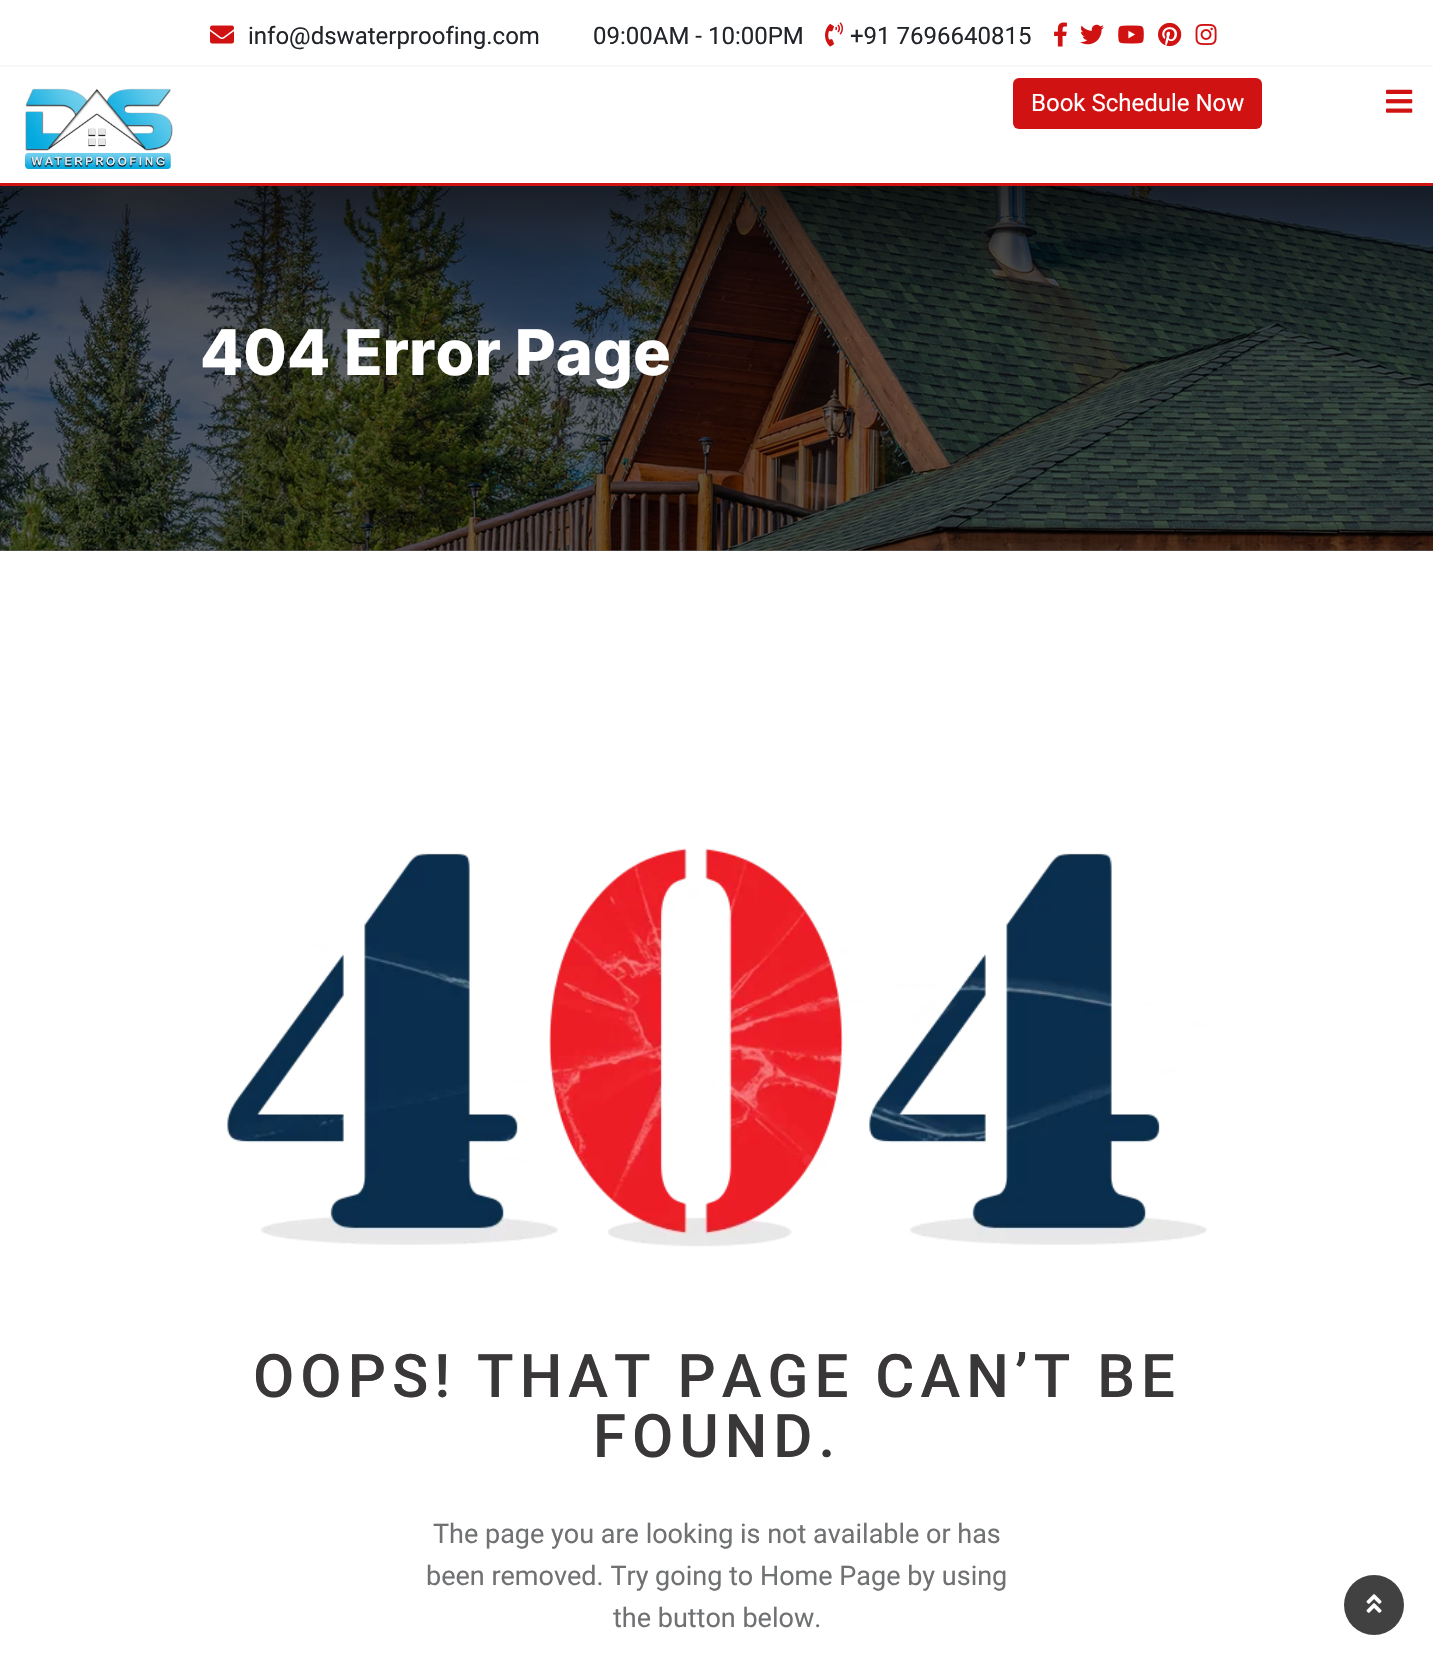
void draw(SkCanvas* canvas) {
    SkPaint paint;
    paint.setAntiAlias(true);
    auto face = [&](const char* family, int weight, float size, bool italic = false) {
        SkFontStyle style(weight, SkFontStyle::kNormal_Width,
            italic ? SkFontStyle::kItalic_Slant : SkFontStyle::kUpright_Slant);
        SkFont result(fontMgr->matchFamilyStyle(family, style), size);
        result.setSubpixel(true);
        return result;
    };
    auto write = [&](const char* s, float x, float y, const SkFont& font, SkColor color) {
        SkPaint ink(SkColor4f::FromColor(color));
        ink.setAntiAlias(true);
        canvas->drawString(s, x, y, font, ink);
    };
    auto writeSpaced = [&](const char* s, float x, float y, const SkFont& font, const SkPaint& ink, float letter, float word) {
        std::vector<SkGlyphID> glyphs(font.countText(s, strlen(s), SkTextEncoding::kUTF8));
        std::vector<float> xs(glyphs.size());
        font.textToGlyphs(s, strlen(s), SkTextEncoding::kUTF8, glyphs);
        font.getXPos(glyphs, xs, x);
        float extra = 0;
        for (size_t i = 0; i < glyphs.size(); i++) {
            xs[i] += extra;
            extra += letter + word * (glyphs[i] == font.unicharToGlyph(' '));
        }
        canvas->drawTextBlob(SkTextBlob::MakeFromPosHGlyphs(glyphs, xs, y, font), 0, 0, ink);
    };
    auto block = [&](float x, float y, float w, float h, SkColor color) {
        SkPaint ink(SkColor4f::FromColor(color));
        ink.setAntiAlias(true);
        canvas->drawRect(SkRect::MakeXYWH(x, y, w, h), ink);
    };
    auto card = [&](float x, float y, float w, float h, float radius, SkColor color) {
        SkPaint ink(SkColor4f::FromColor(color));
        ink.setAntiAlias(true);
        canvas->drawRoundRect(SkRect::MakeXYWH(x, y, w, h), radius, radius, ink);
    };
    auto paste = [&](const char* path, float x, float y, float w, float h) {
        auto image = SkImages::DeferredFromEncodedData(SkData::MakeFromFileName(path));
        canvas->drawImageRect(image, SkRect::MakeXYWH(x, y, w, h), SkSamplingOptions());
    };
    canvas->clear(SK_ColorWHITE);
    block(0, 550, 1433, 1, SkColorSetRGB(102, 102, 102));
    block(0, 65, 1433, 2, SkColorSetRGB(248, 248, 248));
    paste("pic1.png", 210, 25, 24, 19);
    auto kFont1 = face("Roboto", 400, 24);
    write("info@dswaterproofing.com", 248, 44, kFont1, SkColorSetRGB(33, 37, 41));
    write("09:00AM - 10:00PM", 593, 44, kFont1, SkColorSetRGB(33, 37, 41));
    paste("pic2.png", 825, 22, 19, 25);
    write("+91 7696640815", 850, 44, kFont1, SkColorSetRGB(33, 37, 41));
    paste("pic3.png", 1054, 22, 13, 25);
    paste("pic4.png", 1080, 24, 24, 21);
    paste("pic5.png", 1118, 25, 26, 19);
    paste("pic6.png", 1158, 22, 24, 25);
    paste("pic7.png", 1195, 24, 22, 21);
    block(0, 183, 1433, 3, SkColorSetRGB(209, 18, 18));
    paste("pic8.png", 25, 88, 148, 81);
    card(1013, 78, 249, 51, 6, SkColorSetRGB(209, 18, 18));
    write("Book Schedule Now", 1031, 111, kFont1, SK_ColorWHITE);
    paste("pic9.png", 1386, 89, 27, 24);
    paste("pic10.png", 0, 186, 1433, 365);
    {
        const SkColor colors[] = {SkColorSetARGB(148, 0, 0, 0), SkColorSetARGB(59, 0, 0, 0), SkColorSetARGB(0, 0, 0, 0)};
        const float stops[] = {0, 0.2f, 0.44f};
        const SkPoint ends[] = {{717, 186}, {717, 551}};
        paint.setShader(SkGradientShader::MakeLinear(ends, colors, stops, 3, SkTileMode::kClamp));
        paint.setAlpha(255);
    }
    canvas->drawRect(SkRect::MakeXYWH(0, 186, 1433, 151), paint);
    auto kFont2 = face("Inter", 800, 63);
    write("404 Error Page", 200, 375, kFont2, SK_ColorWHITE);
    paste("pic11.png", 227, 848, 980, 399);
    auto kFont3 = face("Roboto", 500, 60);
    paint.setShader(nullptr);
    paint.setColor(SkColorSetRGB(57, 55, 56));
    writeSpaced("OOPS! THAT PAGE CAN’T BE", 253, 1397, kFont3, paint, 6, 0);
    writeSpaced("FOUND.", 593, 1457, kFont3, paint, 6, 0);
    auto kFont4 = face("Roboto", 400, 27);
    write("The page you are looking is not available or has", 433, 1543, kFont4, SkColorSetRGB(112, 113, 115));
    write("been removed. Try going to Home Page by using", 426, 1585, kFont4, SkColorSetRGB(112, 113, 115));
    write("the button below.", 613, 1627, kFont4, SkColorSetRGB(112, 113, 115));
    paint.setColor(SkColorSetRGB(65, 65, 65));
    canvas->drawCircle(1374, 1605, 30, paint);
    paste("pic12.png", 1366, 1594, 16, 19);
}
